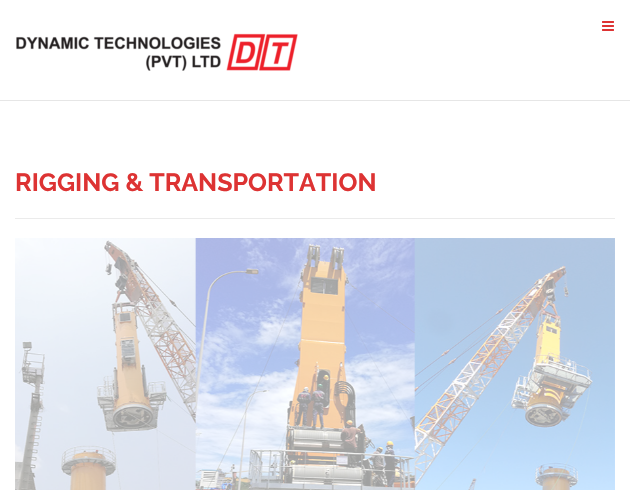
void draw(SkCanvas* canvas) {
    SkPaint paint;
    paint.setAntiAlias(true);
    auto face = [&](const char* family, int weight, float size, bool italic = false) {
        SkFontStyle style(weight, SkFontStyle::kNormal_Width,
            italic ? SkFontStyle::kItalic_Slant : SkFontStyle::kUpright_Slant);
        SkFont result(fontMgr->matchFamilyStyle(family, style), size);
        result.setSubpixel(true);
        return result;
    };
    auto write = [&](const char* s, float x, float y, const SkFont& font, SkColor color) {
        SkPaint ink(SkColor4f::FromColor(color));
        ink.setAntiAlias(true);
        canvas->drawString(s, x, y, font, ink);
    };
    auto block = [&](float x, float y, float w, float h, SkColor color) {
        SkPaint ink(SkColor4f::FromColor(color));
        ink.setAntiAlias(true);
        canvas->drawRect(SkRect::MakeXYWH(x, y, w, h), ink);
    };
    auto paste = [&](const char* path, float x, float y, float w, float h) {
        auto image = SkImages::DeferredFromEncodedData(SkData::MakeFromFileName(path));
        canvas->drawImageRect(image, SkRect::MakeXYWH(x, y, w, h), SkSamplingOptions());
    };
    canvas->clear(SK_ColorWHITE);
    block(0, 100, 630, 1, SkColorSetRGB(230, 230, 230));
    paste("pic1.png", 602, 21, 12, 10);
    paste("pic2.png", 16, 33, 282, 38);
    auto kFont1 = face("Raleway", 700, 25);
    write("RIGGING & TRANSPORTATION", 15, 191, kFont1, SkColorSetRGB(221, 51, 51));
    block(15, 218, 600, 1, SkColorSetRGB(235, 235, 235));
    paste("pic3.png", 15, 238, 600, 252);
}
